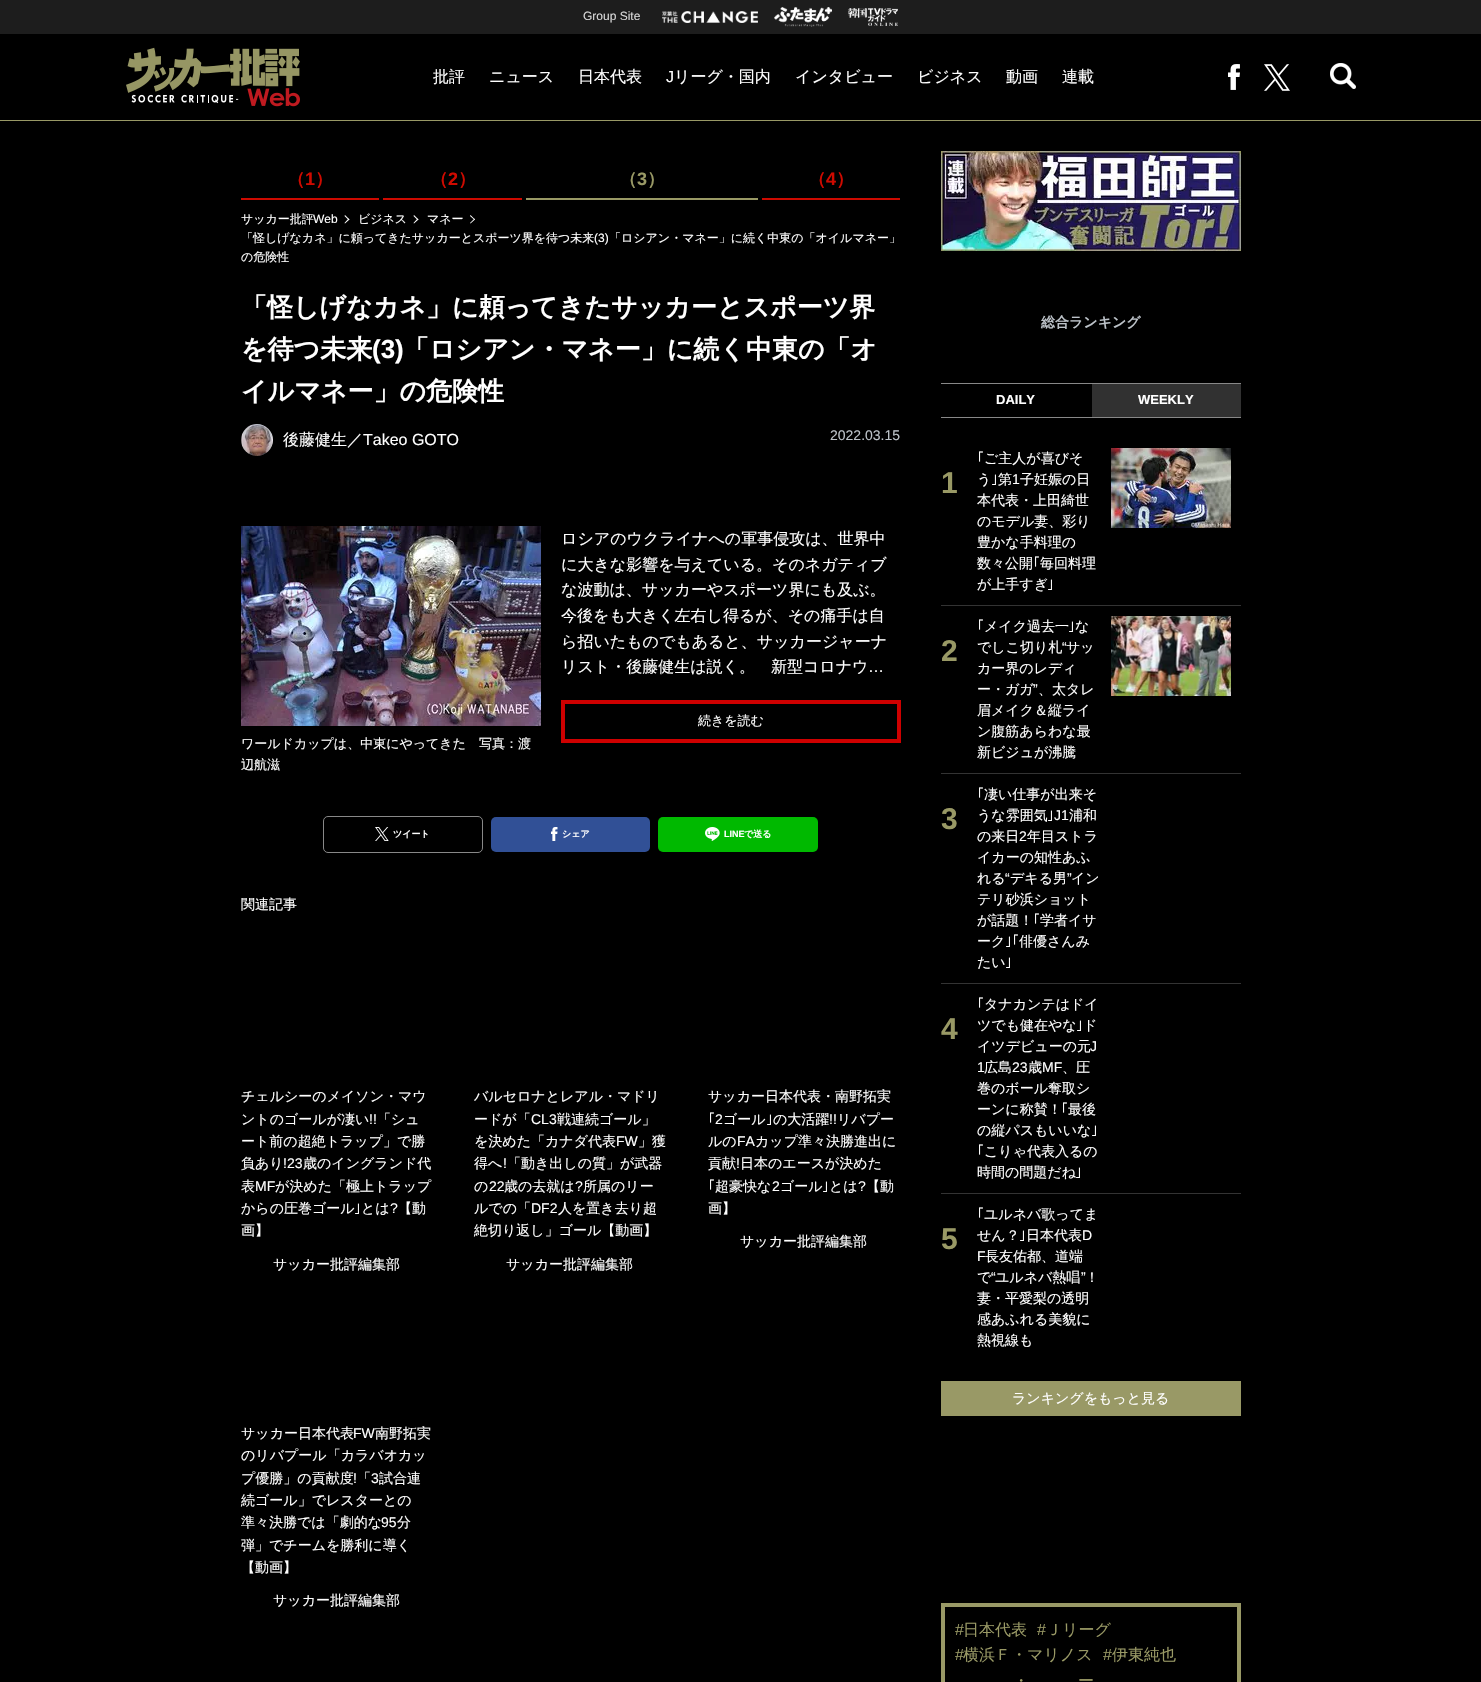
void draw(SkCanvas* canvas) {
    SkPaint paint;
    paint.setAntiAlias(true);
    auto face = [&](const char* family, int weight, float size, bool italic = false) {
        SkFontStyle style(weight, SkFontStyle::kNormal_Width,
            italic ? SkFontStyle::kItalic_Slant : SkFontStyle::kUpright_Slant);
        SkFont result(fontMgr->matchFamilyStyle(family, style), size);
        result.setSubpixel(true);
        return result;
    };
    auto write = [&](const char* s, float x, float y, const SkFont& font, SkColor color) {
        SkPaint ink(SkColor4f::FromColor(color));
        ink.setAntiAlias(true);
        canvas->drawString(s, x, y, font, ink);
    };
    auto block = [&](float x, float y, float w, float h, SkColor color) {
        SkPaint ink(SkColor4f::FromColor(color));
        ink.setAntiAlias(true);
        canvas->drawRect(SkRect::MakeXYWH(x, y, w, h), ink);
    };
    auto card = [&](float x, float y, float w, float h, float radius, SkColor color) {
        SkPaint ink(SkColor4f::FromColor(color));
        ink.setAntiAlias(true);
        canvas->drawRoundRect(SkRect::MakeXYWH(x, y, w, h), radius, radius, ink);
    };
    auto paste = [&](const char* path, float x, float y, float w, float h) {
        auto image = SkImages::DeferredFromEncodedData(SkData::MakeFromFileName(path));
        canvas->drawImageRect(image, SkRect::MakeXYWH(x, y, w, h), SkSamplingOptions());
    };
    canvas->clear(SK_ColorBLACK);
    block(0, 120, 1481, 1, SkColorSetRGB(153, 153, 102));
    block(0, 0, 1481, 34, SkColorSetRGB(29, 29, 29));
    auto kFont1 = face("Liberation Sans", 400, 12);
    write("Group Site", 583, 20, kFont1, SkColorSetRGB(216, 216, 216));
    paste("pic1.png", 662, 11, 96, 12);
    paste("pic2.png", 774, 7, 58, 20);
    paste("pic3.png", 848, 8, 50, 18);
    paste("pic4.png", 126, 47, 174, 60);
    auto kFont2 = face("WenQuanYi Zen Hei", 500, 16);
    write("批評", 433, 82, kFont2, SK_ColorWHITE);
    write("ニュース", 489, 82, kFont2, SK_ColorWHITE);
    write("日本代表", 578, 82, kFont2, SK_ColorWHITE);
    auto kFont3 = face("Liberation Sans", 400, 16);
    write("J", 666, 82, kFont3, SK_ColorWHITE);
    write("リーグ・国内", 674, 82, kFont2, SK_ColorWHITE);
    write("インタビュー", 795, 82, kFont2, SK_ColorWHITE);
    write("ビジネス", 917, 82, kFont2, SK_ColorWHITE);
    write("動画", 1006, 82, kFont2, SK_ColorWHITE);
    write("連載", 1062, 82, kFont2, SK_ColorWHITE);
    paste("pic5.png", 1228, 64, 12, 26);
    paste("pic6.png", 1264, 64, 26, 27);
    paste("pic7.png", 1330, 63, 26, 26);
    block(241, 198, 138, 2, SkColorSetRGB(206, 10, 0));
    auto kFont4 = face("WenQuanYi Zen Hei", 700, 18);
    write("（", 287, 185, kFont4, SkColorSetRGB(206, 10, 0));
    auto kFont5 = face("Liberation Sans", 700, 18);
    write("1", 305, 185, kFont5, SkColorSetRGB(206, 10, 0));
    write("）", 315, 185, kFont4, SkColorSetRGB(206, 10, 0));
    block(383, 198, 139, 2, SkColorSetRGB(206, 10, 0));
    write("（", 430, 185, kFont4, SkColorSetRGB(206, 10, 0));
    write("2", 448, 185, kFont5, SkColorSetRGB(206, 10, 0));
    write("）", 458, 185, kFont4, SkColorSetRGB(206, 10, 0));
    block(526, 198, 232, 2, SkColorSetRGB(153, 153, 101));
    write("（", 619, 185, kFont4, SkColorSetRGB(153, 153, 101));
    write("3", 637, 185, kFont5, SkColorSetRGB(153, 153, 101));
    write("）", 647, 185, kFont4, SkColorSetRGB(153, 153, 101));
    block(762, 198, 138, 2, SkColorSetRGB(206, 10, 0));
    write("（", 808, 185, kFont4, SkColorSetRGB(206, 10, 0));
    write("4", 826, 185, kFont5, SkColorSetRGB(206, 10, 0));
    write("）", 836, 185, kFont4, SkColorSetRGB(206, 10, 0));
    auto kFont6 = face("WenQuanYi Zen Hei", 500, 12);
    write("サッカー批評", 241, 223, kFont6, SK_ColorWHITE);
    write("Web", 313, 223, kFont1, SK_ColorWHITE);
    paint.setColor(SK_ColorWHITE);
    canvas->drawPath(SkPathBuilder().moveTo(345, 215).lineTo(349.5f, 219.5f).lineTo(348.5f, 220).lineTo(344.5f, 216).close().detach(), paint);
    canvas->drawPath(SkPathBuilder().moveTo(348.5f, 218.5f).lineTo(349.5f, 219.5f).lineTo(345, 223.5f).lineTo(344.5f, 223).close().detach(), paint);
    write("ビジネス", 358, 223, kFont6, SK_ColorWHITE);
    canvas->drawPath(SkPathBuilder().moveTo(414, 215).lineTo(418.5f, 219.5f).lineTo(417.5f, 220).lineTo(413.5f, 216).close().detach(), paint);
    canvas->drawPath(SkPathBuilder().moveTo(417.5f, 218.5f).lineTo(418.5f, 219.5f).lineTo(414, 223.5f).lineTo(413.5f, 223).close().detach(), paint);
    write("マネー", 427, 223, kFont6, SK_ColorWHITE);
    canvas->drawPath(SkPathBuilder().moveTo(470.5f, 215).lineTo(475, 219.5f).lineTo(474.5f, 220).lineTo(470, 216).close().detach(), paint);
    canvas->drawPath(SkPathBuilder().moveTo(474.5f, 218.5f).lineTo(475, 219.5f).lineTo(470.5f, 223.5f).lineTo(470, 223).close().detach(), paint);
    write("「怪しげなカネ」に頼ってきたサッカーとスポーツ界を待つ未来", 241, 242, kFont6, SK_ColorWHITE);
    write("(3)", 594, 242, kFont1, SK_ColorWHITE);
    write("「ロシアン・マネー」に続く中東の「オイルマネー」", 609, 242, kFont6, SK_ColorWHITE);
    write("の危険性", 241, 261, kFont6, SK_ColorWHITE);
    auto kFont7 = face("WenQuanYi Zen Hei", 700, 26);
    write("「怪しげなカネ」に頼ってきたサッカーとスポーツ界", 241, 316, kFont7, SK_ColorWHITE);
    write("を待つ未来", 241, 358, kFont7, SK_ColorWHITE);
    auto kFont8 = face("Liberation Sans", 700, 26);
    write("(3)", 372, 358, kFont8, SK_ColorWHITE);
    write("「ロシアン・マネー」に続く中東の「オ", 403, 358, kFont7, SK_ColorWHITE);
    write("イルマネー」の危険性", 241, 400, kFont7, SK_ColorWHITE);
    paste("pic8.png", 241, 424, 32, 32);
    write("後藤健生／", 283, 445, kFont2, SK_ColorWHITE);
    write("Takeo GOTO", 363, 445, kFont3, SK_ColorWHITE);
    auto kFont9 = face("Liberation Sans", 400, 14);
    write("2022.03.15", 830, 440, kFont9, SkColorSetRGB(189, 195, 201));
    write("ロシアのウクライナへの軍事侵攻は、世界中", 561, 544, kFont2, SK_ColorWHITE);
    write("に大きな影響を与えている。そのネガティブ", 561, 570, kFont2, SK_ColorWHITE);
    write("な波動は、サッカーやスポーツ界にも及ぶ。", 561, 595, kFont2, SK_ColorWHITE);
    write("今後をも大きく左右し得るが、その痛手は自", 561, 621, kFont2, SK_ColorWHITE);
    write("ら招いたものでもあると、サッカージャーナ", 561, 647, kFont2, SK_ColorWHITE);
    write("リスト・後藤健生は説く。　新型コロナウ", 561, 672, kFont2, SK_ColorWHITE);
    write("…", 868, 672, kFont3, SK_ColorWHITE);
    paint.setStyle(SkPaint::kStroke_Style);
    paint.setStrokeWidth(4);
    paint.setColor(SkColorSetRGB(206, 0, 0));
    canvas->drawRect(SkRect::MakeXYWH(563, 702, 336, 39), paint);
    auto kFont10 = face("WenQuanYi Zen Hei", 500, 13);
    write("続きを読む", 698, 725, kFont10, SK_ColorWHITE);
    paste("pic9.png", 241, 526, 300, 200);
    write("ワールドカップは、中東にやってきた　写真：渡", 241, 748, kFont10, SK_ColorWHITE);
    write("辺航滋", 241, 769, kFont10, SK_ColorWHITE);
    paint.setStrokeWidth(1);
    paint.setColor(SkColorSetRGB(136, 136, 136));
    canvas->drawRoundRect(SkRect::MakeXYWH(323.5f, 816.5f, 159, 36), 4.5f, 4.5f, paint);
    paste("pic10.png", 375, 827, 14, 14);
    auto kFont11 = face("WenQuanYi Zen Hei", 700, 9);
    write("ツイート", 393, 837, kFont11, SK_ColorWHITE);
    card(491, 817, 159, 35, 5, SkColorSetRGB(49, 80, 150));
    paste("pic11.png", 551, 827, 7, 14);
    write("シェア", 562, 837, kFont11, SK_ColorWHITE);
    card(658, 817, 160, 35, 5, SkColorSetRGB(0, 185, 0));
    paste("pic12.png", 705, 827, 15, 14);
    auto kFont12 = face("Liberation Sans", 700, 9);
    write("LINE", 724, 837, kFont12, SK_ColorWHITE);
    write("で送る", 744, 837, kFont11, SK_ColorWHITE);
    auto kFont13 = face("WenQuanYi Zen Hei", 500, 14);
    write("関連記事", 241, 909, kFont13, SK_ColorWHITE);
    write("チェルシーのメイソン・マウ", 241, 1101, kFont13, SK_ColorWHITE);
    write("ントのゴールが凄い", 241, 1124, kFont13, SK_ColorWHITE);
    write("!!", 369, 1124, kFont9, SK_ColorWHITE);
    write("「シュ", 377, 1124, kFont13, SK_ColorWHITE);
    write("ート前の超絶トラップ」で勝", 241, 1146, kFont13, SK_ColorWHITE);
    write("負あり", 241, 1168, kFont13, SK_ColorWHITE);
    write("!23", 283, 1168, kFont9, SK_ColorWHITE);
    write("歳のイングランド代", 303, 1168, kFont13, SK_ColorWHITE);
    write("表", 241, 1191, kFont13, SK_ColorWHITE);
    write("MF", 255, 1191, kFont9, SK_ColorWHITE);
    write("が決めた「極上トラップ", 275, 1191, kFont13, SK_ColorWHITE);
    write("からの圧巻ゴール", 241, 1213, kFont13, SK_ColorWHITE);
    auto kFont14 = face("IPAPGothic", 400, 14);
    write("｣", 354, 1213, kFont14, SK_ColorWHITE);
    write("とは", 361, 1213, kFont13, SK_ColorWHITE);
    write("?", 390, 1213, kFont9, SK_ColorWHITE);
    write("【動", 398, 1213, kFont13, SK_ColorWHITE);
    write("画】", 241, 1235, kFont13, SK_ColorWHITE);
    write("サッカー批評編集部", 273, 1269, kFont13, SK_ColorWHITE);
    write("バルセロナとレアル・マドリ", 474, 1101, kFont13, SK_ColorWHITE);
    write("ードが「", 474, 1124, kFont13, SK_ColorWHITE);
    write("CL3", 531, 1124, kFont9, SK_ColorWHITE);
    write("戦連続ゴール」", 557, 1124, kFont13, SK_ColorWHITE);
    write("を決めた「カナダ代表", 474, 1146, kFont13, SK_ColorWHITE);
    write("FW", 616, 1146, kFont9, SK_ColorWHITE);
    write("」獲", 638, 1146, kFont13, SK_ColorWHITE);
    write("得へ", 474, 1168, kFont13, SK_ColorWHITE);
    write("!", 503, 1168, kFont9, SK_ColorWHITE);
    write("「動き出しの質」が武器", 507, 1168, kFont13, SK_ColorWHITE);
    write("の", 474, 1191, kFont13, SK_ColorWHITE);
    write("22", 489, 1191, kFont9, SK_ColorWHITE);
    write("歳の去就は", 504, 1191, kFont13, SK_ColorWHITE);
    write("?", 575, 1191, kFont9, SK_ColorWHITE);
    write("所属のリー", 583, 1191, kFont13, SK_ColorWHITE);
    write("ルでの「", 474, 1213, kFont13, SK_ColorWHITE);
    write("DF2", 531, 1213, kFont9, SK_ColorWHITE);
    write("人を置き去り超", 558, 1213, kFont13, SK_ColorWHITE);
    write("絶切り返し」ゴール【動画】", 474, 1235, kFont13, SK_ColorWHITE);
    write("サッカー批評編集部", 506, 1269, kFont13, SK_ColorWHITE);
    write("サッカー日本代表・南野拓実", 708, 1101, kFont13, SK_ColorWHITE);
    write("｢", 708, 1124, kFont14, SK_ColorWHITE);
    write("2", 715, 1124, kFont9, SK_ColorWHITE);
    write("ゴール", 723, 1124, kFont13, SK_ColorWHITE);
    write("｣", 766, 1124, kFont14, SK_ColorWHITE);
    write("の大活躍", 773, 1124, kFont13, SK_ColorWHITE);
    write("!!", 829, 1124, kFont9, SK_ColorWHITE);
    write("リバプー", 837, 1124, kFont13, SK_ColorWHITE);
    write("ルの", 708, 1146, kFont13, SK_ColorWHITE);
    write("FA", 737, 1146, kFont9, SK_ColorWHITE);
    write("カップ準々決勝進出に", 755, 1146, kFont13, SK_ColorWHITE);
    write("貢献", 708, 1168, kFont13, SK_ColorWHITE);
    write("!", 736, 1168, kFont9, SK_ColorWHITE);
    write("日本のエースが決めた", 740, 1168, kFont13, SK_ColorWHITE);
    write("｢", 708, 1191, kFont14, SK_ColorWHITE);
    write("超豪快な", 715, 1191, kFont13, SK_ColorWHITE);
    write("2", 772, 1191, kFont9, SK_ColorWHITE);
    write("ゴール", 780, 1191, kFont13, SK_ColorWHITE);
    write("｣", 822, 1191, kFont14, SK_ColorWHITE);
    write("とは", 829, 1191, kFont13, SK_ColorWHITE);
    write("?", 858, 1191, kFont9, SK_ColorWHITE);
    write("【動", 866, 1191, kFont13, SK_ColorWHITE);
    write("画】", 708, 1213, kFont13, SK_ColorWHITE);
    write("サッカー批評編集部", 740, 1246, kFont13, SK_ColorWHITE);
    write("サッカー日本代表", 241, 1438, kFont13, SK_ColorWHITE);
    write("FW", 353, 1438, kFont9, SK_ColorWHITE);
    write("南野拓実", 375, 1438, kFont13, SK_ColorWHITE);
    write("のリバプール「カラバオカッ", 241, 1460, kFont13, SK_ColorWHITE);
    write("プ優勝」の貢献度", 241, 1483, kFont13, SK_ColorWHITE);
    write("!", 353, 1483, kFont9, SK_ColorWHITE);
    write("「", 357, 1483, kFont13, SK_ColorWHITE);
    write("3", 371, 1483, kFont9, SK_ColorWHITE);
    write("試合連", 379, 1483, kFont13, SK_ColorWHITE);
    write("続ゴール」でレスターとの", 241, 1505, kFont13, SK_ColorWHITE);
    write("準々決勝では「劇的な", 241, 1527, kFont13, SK_ColorWHITE);
    write("95", 381, 1527, kFont9, SK_ColorWHITE);
    write("分", 397, 1527, kFont13, SK_ColorWHITE);
    write("弾」でチームを勝利に導く", 241, 1550, kFont13, SK_ColorWHITE);
    write("【動画】", 241, 1572, kFont13, SK_ColorWHITE);
    write("サッカー批評編集部", 273, 1605, kFont13, SK_ColorWHITE);
    paste("pic13.png", 941, 151, 300, 100);
    auto kFont15 = face("WenQuanYi Zen Hei", 700, 14);
    write("総合ランキング", 1041, 327, kFont15, SkColorSetRGB(189, 195, 201));
    block(941, 383, 300, 1, SkColorSetRGB(136, 136, 136));
    block(941, 417, 300, 1, SkColorSetRGB(136, 136, 136));
    auto kFont16 = face("Liberation Sans", 700, 13);
    write("DAILY", 996, 404, kFont16, SK_ColorWHITE);
    block(1092, 384, 149, 33, SkColorSetRGB(49, 49, 49));
    write("WEEKLY", 1138, 404, kFont16, SK_ColorWHITE);
    block(941, 605, 300, 1, SkColorSetRGB(51, 51, 51));
    auto kFont17 = face("Liberation Sans", 700, 30);
    write("1", 941, 493, kFont17, SkColorSetRGB(153, 153, 101));
    write("｢", 977, 463, kFont14, SK_ColorWHITE);
    write("ご主人が喜びそ", 984, 463, kFont13, SK_ColorWHITE);
    write("う", 977, 484, kFont13, SK_ColorWHITE);
    write("｣", 991, 484, kFont14, SK_ColorWHITE);
    write("第", 998, 484, kFont13, SK_ColorWHITE);
    write("1", 1012, 484, kFont9, SK_ColorWHITE);
    write("子妊娠の日", 1020, 484, kFont13, SK_ColorWHITE);
    write("本代表・上田綺世", 977, 505, kFont13, SK_ColorWHITE);
    write("のモデル妻、彩り", 977, 526, kFont13, SK_ColorWHITE);
    write("豊かな手料理の", 977, 547, kFont13, SK_ColorWHITE);
    write("数々公開", 977, 568, kFont13, SK_ColorWHITE);
    write("｢", 1033, 568, kFont14, SK_ColorWHITE);
    write("毎回料理", 1040, 568, kFont13, SK_ColorWHITE);
    write("が上手すぎ", 977, 589, kFont13, SK_ColorWHITE);
    write("｣", 1047, 589, kFont14, SK_ColorWHITE);
    paste("pic14.png", 1111, 448, 120, 80);
    block(941, 773, 300, 1, SkColorSetRGB(51, 51, 51));
    write("2", 941, 661, kFont17, SkColorSetRGB(153, 153, 101));
    write("｢", 977, 631, kFont14, SK_ColorWHITE);
    write("メイク過去一", 984, 631, kFont13, SK_ColorWHITE);
    write("｣", 1068, 631, kFont14, SK_ColorWHITE);
    write("な", 1075, 631, kFont13, SK_ColorWHITE);
    write("でしこ切り札", 977, 652, kFont13, SK_ColorWHITE);
    write("“", 1062, 652, kFont9, SK_ColorWHITE);
    write("サッ", 1066, 652, kFont13, SK_ColorWHITE);
    write("カー界のレディ", 977, 673, kFont13, SK_ColorWHITE);
    write("ー・ガガ", 977, 694, kFont13, SK_ColorWHITE);
    write("”", 1033, 694, kFont9, SK_ColorWHITE);
    write("、太タレ", 1038, 694, kFont13, SK_ColorWHITE);
    write("眉メイク＆縦ライ", 977, 715, kFont13, SK_ColorWHITE);
    write("ン腹筋あらわな最", 977, 736, kFont13, SK_ColorWHITE);
    write("新ビジュが沸騰", 977, 757, kFont13, SK_ColorWHITE);
    paste("pic15.png", 1111, 616, 120, 80);
    block(941, 983, 300, 1, SkColorSetRGB(51, 51, 51));
    write("3", 941, 829, kFont17, SkColorSetRGB(153, 153, 101));
    write("｢", 977, 799, kFont14, SK_ColorWHITE);
    write("凄い仕事が出来そ", 984, 799, kFont13, SK_ColorWHITE);
    write("うな雰囲気", 977, 820, kFont13, SK_ColorWHITE);
    write("｣", 1047, 820, kFont14, SK_ColorWHITE);
    write("J1", 1054, 820, kFont9, SK_ColorWHITE);
    write("浦和", 1069, 820, kFont13, SK_ColorWHITE);
    write("の来日", 977, 841, kFont13, SK_ColorWHITE);
    write("2", 1019, 841, kFont9, SK_ColorWHITE);
    write("年目ストラ", 1027, 841, kFont13, SK_ColorWHITE);
    write("イカーの知性あふ", 977, 862, kFont13, SK_ColorWHITE);
    write("れる", 977, 883, kFont13, SK_ColorWHITE);
    write("“", 1005, 883, kFont9, SK_ColorWHITE);
    write("デキる男", 1010, 883, kFont13, SK_ColorWHITE);
    write("”", 1067, 883, kFont9, SK_ColorWHITE);
    write("イン", 1071, 883, kFont13, SK_ColorWHITE);
    write("テリ砂浜ショット", 977, 904, kFont13, SK_ColorWHITE);
    write("が話題！", 977, 925, kFont13, SK_ColorWHITE);
    write("｢", 1033, 925, kFont14, SK_ColorWHITE);
    write("学者イサ", 1040, 925, kFont13, SK_ColorWHITE);
    write("ーク", 977, 946, kFont13, SK_ColorWHITE);
    write("｣｢", 1005, 946, kFont14, SK_ColorWHITE);
    write("俳優さんみ", 1019, 946, kFont13, SK_ColorWHITE);
    write("たい", 977, 967, kFont13, SK_ColorWHITE);
    write("｣", 1005, 967, kFont14, SK_ColorWHITE);
    block(941, 1193, 300, 1, SkColorSetRGB(51, 51, 51));
    write("4", 941, 1039, kFont17, SkColorSetRGB(153, 153, 101));
    write("｢", 977, 1009, kFont14, SK_ColorWHITE);
    write("タナカンテはドイ", 984, 1009, kFont13, SK_ColorWHITE);
    write("ツでも健在やな", 977, 1030, kFont13, SK_ColorWHITE);
    write("｣", 1076, 1030, kFont14, SK_ColorWHITE);
    write("ド", 1083, 1030, kFont13, SK_ColorWHITE);
    write("イツデビューの元", 977, 1051, kFont13, SK_ColorWHITE);
    write("J", 1090, 1051, kFont9, SK_ColorWHITE);
    write("1", 977, 1072, kFont9, SK_ColorWHITE);
    write("広島", 984, 1072, kFont13, SK_ColorWHITE);
    write("23", 1012, 1072, kFont9, SK_ColorWHITE);
    write("歳", 1028, 1072, kFont13, SK_ColorWHITE);
    write("MF", 1042, 1072, kFont9, SK_ColorWHITE);
    write("、圧", 1062, 1072, kFont13, SK_ColorWHITE);
    write("巻のボール奪取シ", 977, 1093, kFont13, SK_ColorWHITE);
    write("ーンに称賛！", 977, 1114, kFont13, SK_ColorWHITE);
    write("｢", 1061, 1114, kFont14, SK_ColorWHITE);
    write("最後", 1068, 1114, kFont13, SK_ColorWHITE);
    write("の縦パスもいいな", 977, 1135, kFont13, SK_ColorWHITE);
    write("｣", 1091, 1135, kFont14, SK_ColorWHITE);
    write("｢", 977, 1156, kFont14, SK_ColorWHITE);
    write("こりゃ代表入るの", 984, 1156, kFont13, SK_ColorWHITE);
    write("時間の問題だね", 977, 1177, kFont13, SK_ColorWHITE);
    write("｣", 1075, 1177, kFont14, SK_ColorWHITE);
    write("5", 941, 1249, kFont17, SkColorSetRGB(153, 153, 101));
    write("｢", 977, 1219, kFont14, SK_ColorWHITE);
    write("ユルネバ歌ってま", 984, 1219, kFont13, SK_ColorWHITE);
    write("せん？", 977, 1240, kFont13, SK_ColorWHITE);
    write("｣", 1019, 1240, kFont14, SK_ColorWHITE);
    write("日本代表", 1026, 1240, kFont13, SK_ColorWHITE);
    write("D", 1082, 1240, kFont9, SK_ColorWHITE);
    write("F", 977, 1261, kFont9, SK_ColorWHITE);
    write("長友佑都、道端", 985, 1261, kFont13, SK_ColorWHITE);
    write("で", 977, 1282, kFont13, SK_ColorWHITE);
    write("“", 991, 1282, kFont9, SK_ColorWHITE);
    write("ユルネバ熱唱", 995, 1282, kFont13, SK_ColorWHITE);
    write("”", 1081, 1282, kFont9, SK_ColorWHITE);
    write("！", 1085, 1282, kFont13, SK_ColorWHITE);
    write("妻・平愛梨の透明", 977, 1303, kFont13, SK_ColorWHITE);
    write("感あふれる美貌に", 977, 1324, kFont13, SK_ColorWHITE);
    write("熱視線も", 977, 1345, kFont13, SK_ColorWHITE);
    block(941, 1381, 300, 35, SkColorSetRGB(153, 153, 102));
    write("ランキングをもっと見る", 1012, 1403, kFont13, SK_ColorWHITE);
    paint.setStrokeWidth(4);
    paint.setColor(SkColorSetRGB(153, 153, 102));
    canvas->drawRect(SkRect::MakeXYWH(943, 1605, 296, 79), paint);
    write("#", 955, 1635, kFont3, SkColorSetRGB(153, 153, 101));
    write("日本代表", 963, 1635, kFont2, SkColorSetRGB(153, 153, 101));
    write("#", 1037, 1635, kFont3, SkColorSetRGB(153, 153, 101));
    write("Ｊリーグ", 1046, 1635, kFont2, SkColorSetRGB(153, 153, 101));
    write("#", 955, 1660, kFont3, SkColorSetRGB(153, 153, 101));
    write("横浜Ｆ・マリノス", 963, 1660, kFont2, SkColorSetRGB(153, 153, 101));
    write("#", 1103, 1660, kFont3, SkColorSetRGB(153, 153, 101));
    write("伊東純也", 1112, 1660, kFont2, SkColorSetRGB(153, 153, 101));
    write("・", 1013, 1686, kFont2, SkColorSetRGB(153, 153, 101));
    write("ー", 1078, 1686, kFont2, SkColorSetRGB(153, 153, 101));
}
